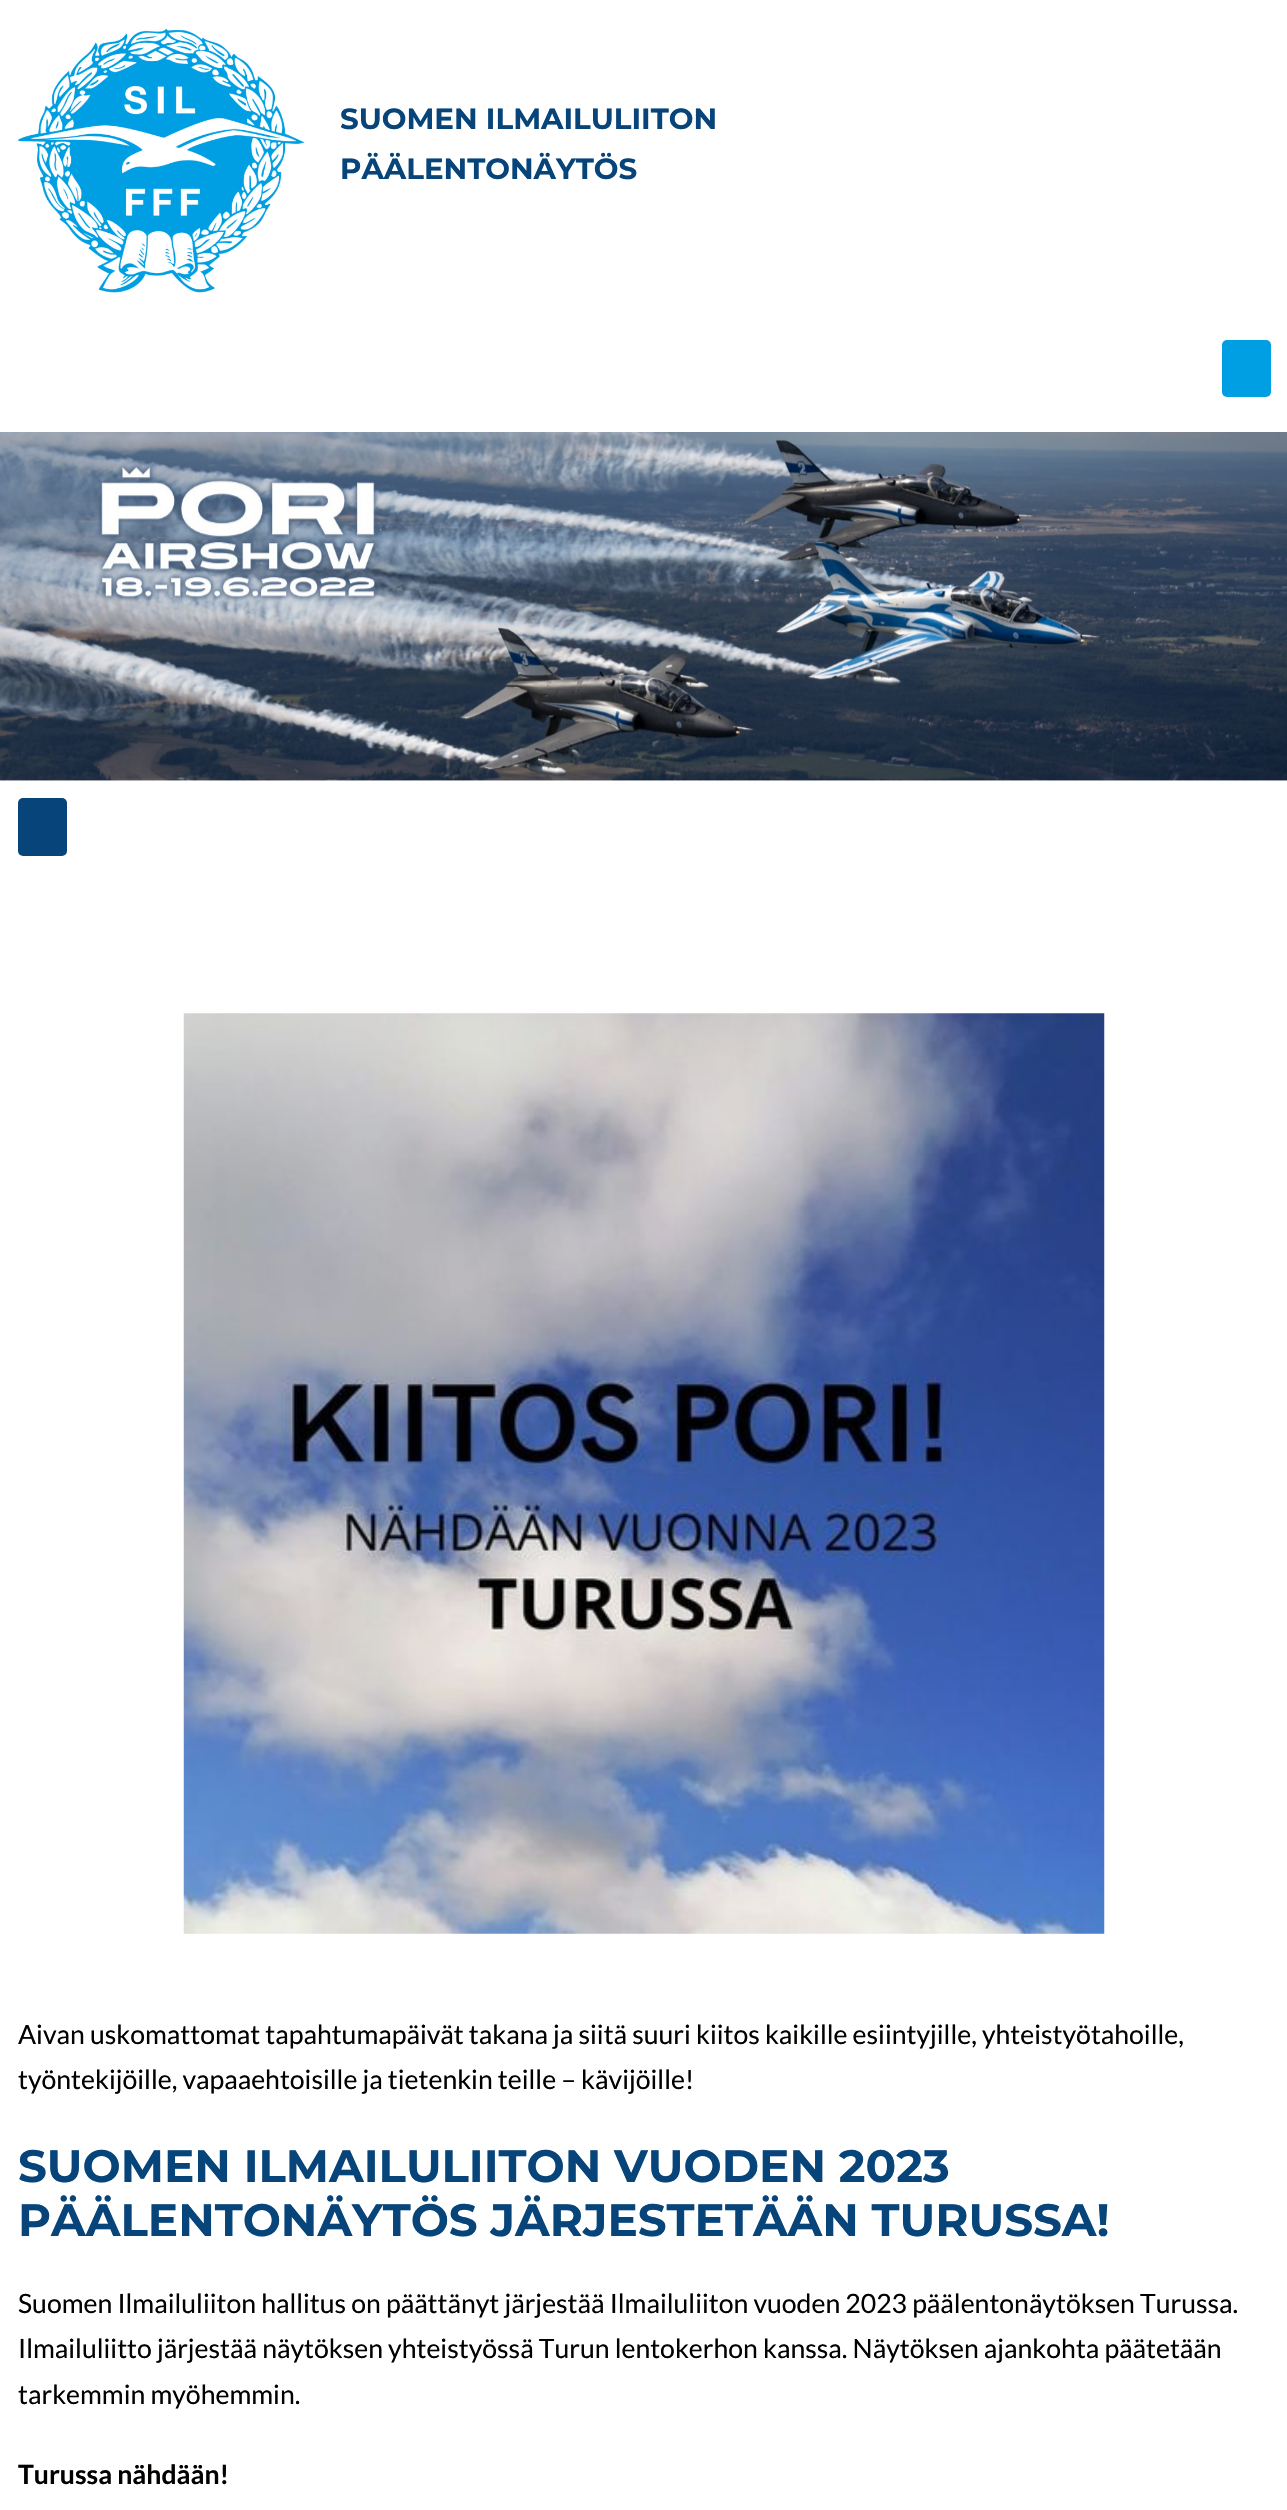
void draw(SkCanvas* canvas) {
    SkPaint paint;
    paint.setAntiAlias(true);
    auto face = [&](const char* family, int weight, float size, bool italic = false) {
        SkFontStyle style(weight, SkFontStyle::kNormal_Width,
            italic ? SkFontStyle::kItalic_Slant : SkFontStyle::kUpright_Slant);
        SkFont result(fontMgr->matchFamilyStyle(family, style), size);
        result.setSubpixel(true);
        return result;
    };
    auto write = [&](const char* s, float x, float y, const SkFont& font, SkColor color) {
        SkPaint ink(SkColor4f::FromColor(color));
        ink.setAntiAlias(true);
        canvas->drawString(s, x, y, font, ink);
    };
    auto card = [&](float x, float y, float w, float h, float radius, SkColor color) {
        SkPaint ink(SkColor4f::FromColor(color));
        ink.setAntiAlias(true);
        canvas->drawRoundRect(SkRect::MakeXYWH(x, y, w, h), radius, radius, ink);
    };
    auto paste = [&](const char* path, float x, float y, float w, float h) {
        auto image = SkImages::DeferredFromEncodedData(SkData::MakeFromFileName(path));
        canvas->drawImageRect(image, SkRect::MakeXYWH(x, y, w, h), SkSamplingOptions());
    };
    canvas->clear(SK_ColorWHITE);
    paste("pic1.png", 17, 28, 288, 265);
    auto kFont1 = face("Montserrat", 700, 29.25f);
    write("SUOMEN ILMAILULIITON", 340, 129, kFont1, SkColorSetRGB(7, 68, 121));
    write("PÄÄLENTONÄYTÖS", 340, 179, kFont1, SkColorSetRGB(7, 68, 121));
    card(1222, 340, 49, 57, 5, SkColorSetRGB(0, 158, 226));
    paste("pic2.png", 0, 432, 1287, 349);
    card(18, 798, 49, 58, 5, SkColorSetRGB(7, 68, 121));
    paste("pic3.png", 183, 1013, 922, 921);
    auto kFont2 = face("Lato", 400, 26.6f);
    write("Aivan uskomattomat tapahtumapäivät takana ja siitä suuri kiitos kaikille esiintyjille, yhteistyötahoille,", 18, 2044, kFont2, SkColorSetRGB(2, 1, 0));
    write("työntekijöille, vapaaehtoisille ja tietenkin teille – kävijöille!", 18, 2089, kFont2, SkColorSetRGB(2, 1, 0));
    auto kFont3 = face("Montserrat", 700, 45.25f);
    write("SUOMEN ILMAILULIITON VUODEN 2023", 18, 2182, kFont3, SkColorSetRGB(7, 68, 121));
    write("PÄÄLENTONÄYTÖS JÄRJESTETÄÄN TURUSSA!", 18, 2236, kFont3, SkColorSetRGB(7, 68, 121));
    write("Suomen Ilmailuliiton hallitus on päättänyt järjestää Ilmailuliiton vuoden 2023 päälentonäytöksen Turussa.", 18, 2313, kFont2, SkColorSetRGB(2, 1, 0));
    write("Ilmailuliitto järjestää näytöksen yhteistyössä Turun lentokerhon kanssa. Näytöksen ajankohta päätetään", 18, 2358, kFont2, SkColorSetRGB(2, 1, 0));
    write("tarkemmin myöhemmin.", 18, 2404, kFont2, SkColorSetRGB(2, 1, 0));
    auto kFont4 = face("Lato", 700, 26.6f);
    write("Turussa nähdään!", 18, 2484, kFont4, SkColorSetRGB(2, 1, 0));
}
